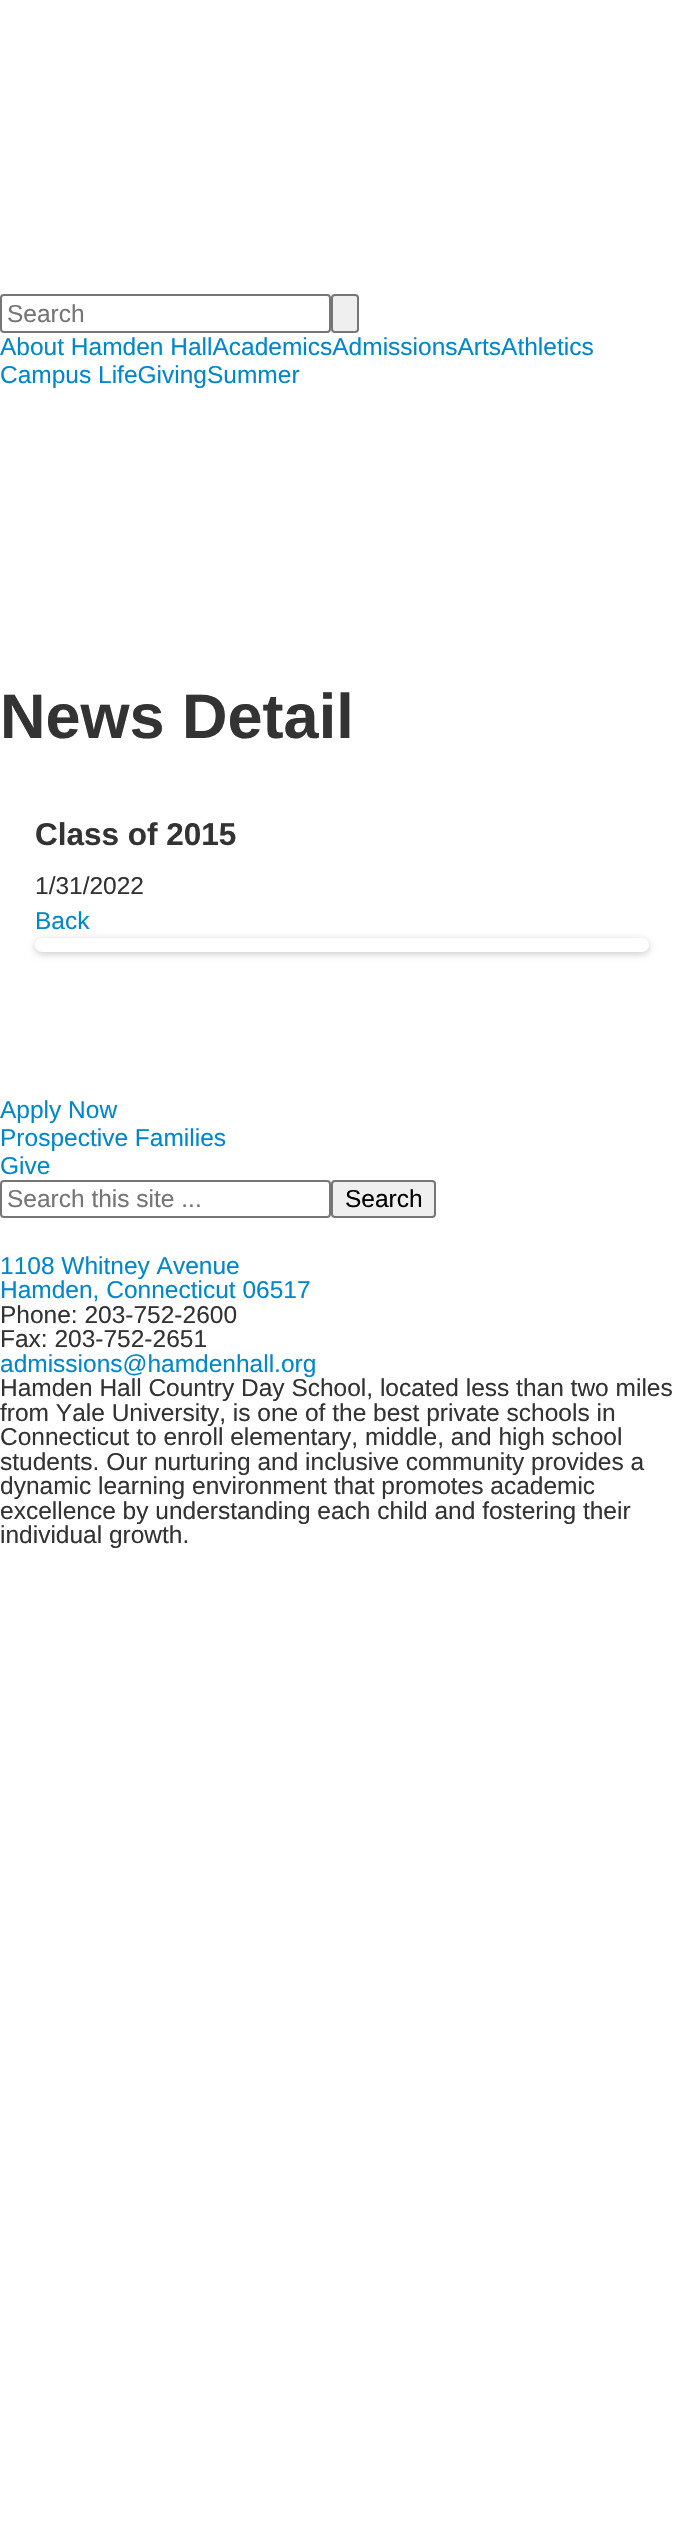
void draw(SkCanvas* canvas) {
    SkPaint paint;
    paint.setAntiAlias(true);
    auto face = [&](const char* family, int weight, float size, bool italic = false) {
        SkFontStyle style(weight, SkFontStyle::kNormal_Width,
            italic ? SkFontStyle::kItalic_Slant : SkFontStyle::kUpright_Slant);
        SkFont result(fontMgr->matchFamilyStyle(family, style), size);
        result.setSubpixel(true);
        return result;
    };
    auto write = [&](const char* s, float x, float y, const SkFont& font, SkColor color) {
        SkPaint ink(SkColor4f::FromColor(color));
        ink.setAntiAlias(true);
        canvas->drawString(s, x, y, font, ink);
    };
    auto card = [&](float x, float y, float w, float h, float radius, SkColor color) {
        SkPaint ink(SkColor4f::FromColor(color));
        ink.setAntiAlias(true);
        canvas->drawRoundRect(SkRect::MakeXYWH(x, y, w, h), radius, radius, ink);
    };
    canvas->clear(SK_ColorWHITE);
    paint.setStyle(SkPaint::kStroke_Style);
    paint.setStrokeWidth(2);
    paint.setColor(SkColorSetRGB(118, 118, 118));
    canvas->drawRoundRect(SkRect::MakeXYWH(1, 295, 329, 37), 3, 3, paint);
    auto kFont1 = face("Liberation Sans", 400, 24.5f);
    write("Search", 7, 322, kFont1, SkColorSetRGB(117, 117, 117));
    paint.setStyle(SkPaint::kFill_Style);
    paint.setColor(SkColorSetRGB(239, 239, 239));
    canvas->drawRoundRect(SkRect::MakeXYWH(332, 295, 26, 37), 3, 3, paint);
    paint.setStyle(SkPaint::kStroke_Style);
    paint.setColor(SkColorSetRGB(118, 118, 118));
    canvas->drawRoundRect(SkRect::MakeXYWH(332, 295, 26, 37), 3, 3, paint);
    write("About Hamden HallAcademicsAdmissionsArtsAthletics", 0, 355, kFont1, SkColorSetRGB(0, 136, 204));
    write("Campus LifeGivingSummer", 0, 383, kFont1, SkColorSetRGB(0, 136, 204));
    auto kFont2 = face("Liberation Sans", 700, 63);
    write("News Detail", 0, 738, kFont2, SkColorSetRGB(51, 51, 51));
    auto kFont3 = face("Liberation Sans", 700, 31.5f);
    write("Class of 2015", 35, 845, kFont3, SkColorSetRGB(51, 51, 51));
    write("1/31/2022", 35, 894, kFont1, SkColorSetRGB(51, 51, 51));
    write("Back", 35, 929, kFont1, SkColorSetRGB(0, 136, 204));
    paint.setStyle(SkPaint::kFill_Style);
    paint.setColor(SkColorSetARGB(51, 0, 0, 0));
    paint.setMaskFilter(SkMaskFilter::MakeBlur(kNormal_SkBlurStyle, 3.5f));
    canvas->drawRoundRect(SkRect::MakeXYWH(35, 940, 614, 14), 7, 7, paint);
    paint.setMaskFilter(nullptr);
    card(35, 938, 614, 14, 7, SK_ColorWHITE);
    write("Apply Now", 0, 1118, kFont1, SkColorSetRGB(0, 136, 204));
    write("Prospective Families", 0, 1146, kFont1, SkColorSetRGB(0, 136, 204));
    write("Give", 0, 1174, kFont1, SkColorSetRGB(0, 136, 204));
    paint.setStyle(SkPaint::kStroke_Style);
    paint.setColor(SkColorSetRGB(118, 118, 118));
    canvas->drawRoundRect(SkRect::MakeXYWH(1, 1181, 329, 36), 3, 3, paint);
    write("Search this site ...", 7, 1207, kFont1, SkColorSetRGB(117, 117, 117));
    paint.setStyle(SkPaint::kFill_Style);
    paint.setColor(SkColorSetRGB(239, 239, 239));
    canvas->drawRoundRect(SkRect::MakeXYWH(332, 1181, 103, 36), 3, 3, paint);
    paint.setStyle(SkPaint::kStroke_Style);
    paint.setColor(SkColorSetRGB(118, 118, 118));
    canvas->drawRoundRect(SkRect::MakeXYWH(332, 1181, 103, 36), 3, 3, paint);
    write("Search", 345, 1207, kFont1, SK_ColorBLACK);
    write("1108 Whitney Avenue", 0, 1274, kFont1, SkColorSetRGB(0, 136, 204));
    write("Hamden, Connecticut 06517", 0, 1298, kFont1, SkColorSetRGB(0, 136, 204));
    write("Phone: 203-752-2600", 0, 1323, kFont1, SkColorSetRGB(51, 51, 51));
    write("Fax: 203-752-2651", 0, 1347, kFont1, SkColorSetRGB(51, 51, 51));
    write("admissions@hamdenhall.org", 0, 1372, kFont1, SkColorSetRGB(0, 136, 204));
    write("Hamden Hall Country Day School, located less than two miles", 0, 1396, kFont1, SkColorSetRGB(51, 51, 51));
    write("from Yale University, is one of the best private schools in", 0, 1421, kFont1, SkColorSetRGB(51, 51, 51));
    write("Connecticut to enroll elementary, middle, and high school", 0, 1445, kFont1, SkColorSetRGB(51, 51, 51));
    write("students. Our nurturing and inclusive community provides a", 0, 1470, kFont1, SkColorSetRGB(51, 51, 51));
    write("dynamic learning environment that promotes academic", 0, 1494, kFont1, SkColorSetRGB(51, 51, 51));
    write("excellence by understanding each child and fostering their", 0, 1519, kFont1, SkColorSetRGB(51, 51, 51));
    write("individual growth.", 0, 1543, kFont1, SkColorSetRGB(51, 51, 51));
}
